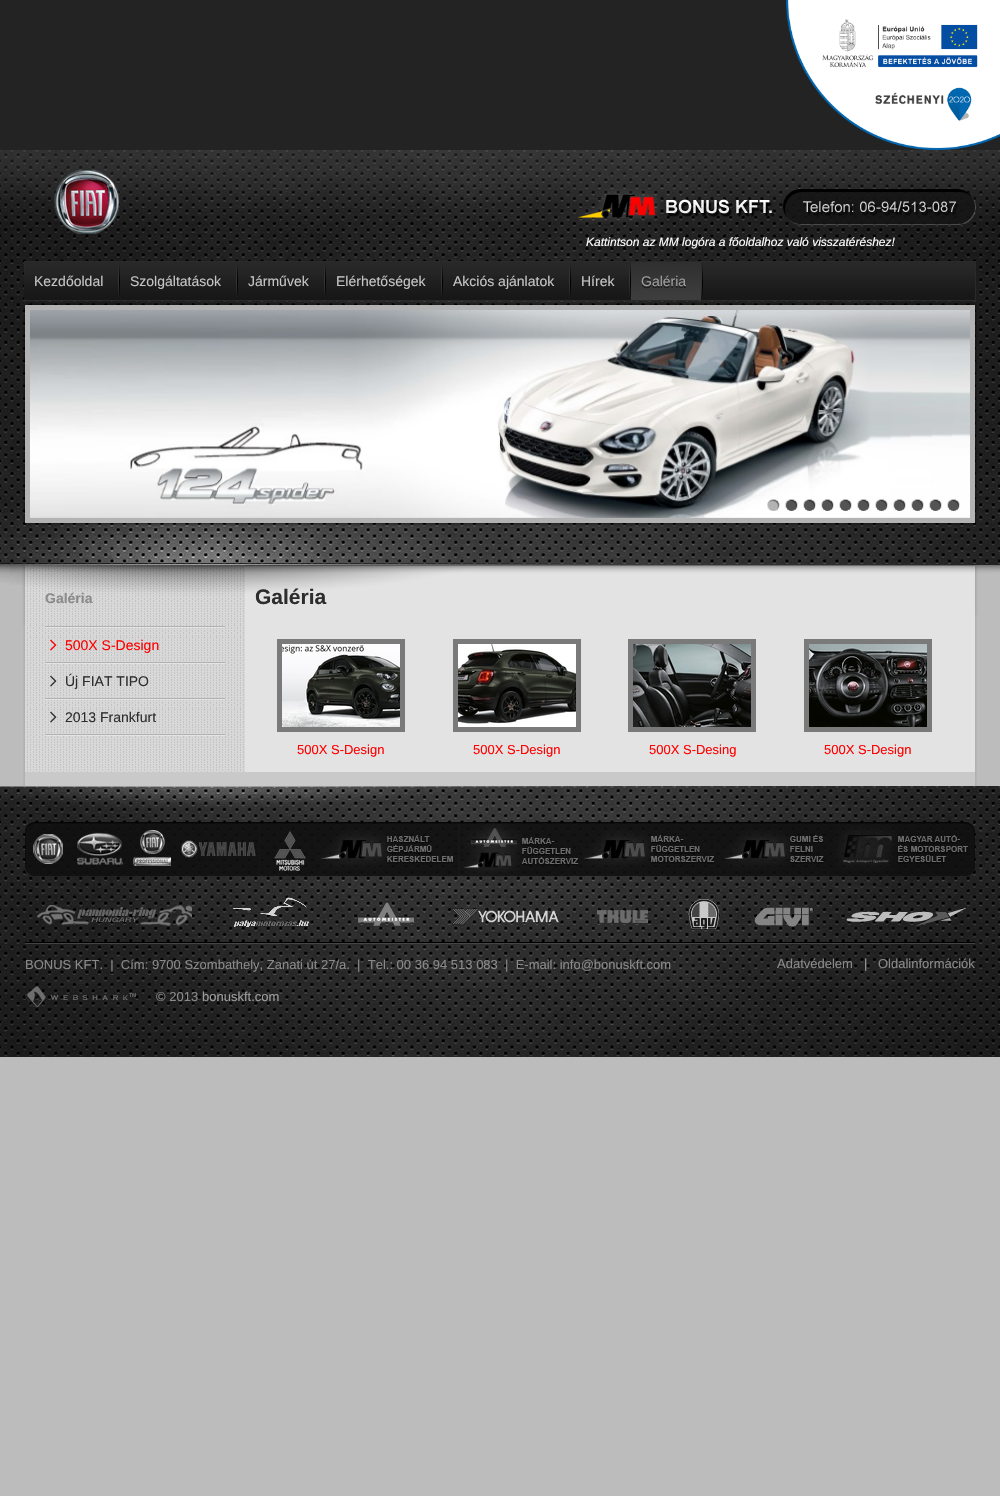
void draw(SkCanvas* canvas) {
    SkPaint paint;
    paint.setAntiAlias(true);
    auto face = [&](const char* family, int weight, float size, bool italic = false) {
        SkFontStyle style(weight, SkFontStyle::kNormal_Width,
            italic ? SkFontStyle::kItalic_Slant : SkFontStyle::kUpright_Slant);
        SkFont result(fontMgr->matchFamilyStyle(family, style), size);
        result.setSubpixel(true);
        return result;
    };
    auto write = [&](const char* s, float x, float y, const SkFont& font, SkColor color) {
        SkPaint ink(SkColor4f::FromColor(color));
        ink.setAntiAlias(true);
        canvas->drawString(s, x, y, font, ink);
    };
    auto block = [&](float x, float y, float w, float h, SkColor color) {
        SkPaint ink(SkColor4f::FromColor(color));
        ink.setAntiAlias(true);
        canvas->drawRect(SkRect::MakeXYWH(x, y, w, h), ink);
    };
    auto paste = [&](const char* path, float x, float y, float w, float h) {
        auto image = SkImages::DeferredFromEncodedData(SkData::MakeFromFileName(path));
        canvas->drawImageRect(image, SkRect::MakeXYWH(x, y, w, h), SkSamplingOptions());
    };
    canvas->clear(SkColorSetRGB(188, 188, 188));
    block(0, 0, 1000, 150, SkColorSetRGB(35, 35, 35));
    paste("pic1.png", 786, 0, 214, 150);
    paste("pic2.png", 0, 150, 1000, 433);
    paste("pic3.png", 10, 150, 980, 435);
    paste("pic4.png", 54, 170, 65, 64);
    paste("pic5.png", 578, 189, 398, 36);
    auto kFont1 = face("Liberation Sans", 400, 12, true);
    write("Kattintson az MM logóra a főoldalhoz való visszatéréshez!", 586, 246, kFont1, SK_ColorWHITE);
    paste("pic6.png", 24, 261, 952, 40);
    paste("pic7.png", 24, 271, 1, 29);
    auto kFont2 = face("Liberation Sans", 400, 14);
    write("Kezdőoldal", 34, 286, kFont2, SkColorSetRGB(197, 197, 197));
    paste("pic8.png", 118, 265, 2, 31);
    write("Szolgáltatások", 130, 286, kFont2, SkColorSetRGB(197, 197, 197));
    paste("pic8.png", 236, 265, 2, 31);
    write("Járművek", 248, 286, kFont2, SkColorSetRGB(197, 197, 197));
    paste("pic8.png", 324, 265, 2, 31);
    write("Elérhetőségek", 336, 286, kFont2, SkColorSetRGB(197, 197, 197));
    paste("pic8.png", 441, 265, 2, 31);
    write("Akciós ajánlatok", 453, 286, kFont2, SkColorSetRGB(197, 197, 197));
    paste("pic8.png", 569, 265, 2, 31);
    write("Hírek", 581, 286, kFont2, SkColorSetRGB(197, 197, 197));
    paste("pic8.png", 629, 265, 2, 31);
    paste("pic9.png", 631, 262, 70, 38);
    write("Galéria", 641, 288, kFont2, SkColorSetRGB(28, 28, 28));
    write("Galéria", 641, 286, kFont2, SkColorSetRGB(159, 159, 159));
    paste("pic8.png", 701, 265, 2, 31);
    paste("pic10.png", 23, 302, 954, 224);
    paste("pic11.png", 30, 310, 940, 208);
    paste("pic12.png", 767, 499, 13, 12);
    paste("pic13.png", 785, 499, 13, 12);
    paste("pic13.png", 803, 499, 13, 12);
    paste("pic13.png", 821, 499, 13, 12);
    paste("pic13.png", 839, 499, 13, 12);
    paste("pic14.png", 857, 499, 13, 12);
    paste("pic15.png", 875, 499, 13, 12);
    paste("pic15.png", 893, 499, 13, 12);
    paste("pic15.png", 911, 499, 13, 12);
    paste("pic15.png", 929, 499, 13, 12);
    paste("pic15.png", 947, 499, 13, 12);
    paste("pic16.png", 23, 615, 954, 157);
    paste("pic17.png", 22, 565, 223, 60);
    auto kFont3 = face("Liberation Sans", 700, 14);
    write("Galéria", 45, 603, kFont3, SkColorSetRGB(138, 138, 138));
    paste("pic18.png", 45, 626, 180, 25);
    write("500X S-Design", 65, 650, kFont2, SkColorSetRGB(255, 0, 0));
    paste("pic19.png", 45, 662, 180, 25);
    write("Új FIAT TIPO", 65, 686, kFont2, SkColorSetRGB(45, 45, 45));
    paste("pic20.png", 45, 698, 180, 38);
    write("2013 Frankfurt", 65, 722, kFont2, SkColorSetRGB(45, 45, 45));
    paste("pic21.png", 245, 565, 733, 50);
    auto kFont4 = face("Liberation Sans", 700, 21);
    write("Galéria", 255, 604, kFont4, SkColorSetRGB(45, 45, 45));
    paint.setStyle(SkPaint::kStroke_Style);
    paint.setStrokeWidth(5);
    paint.setColor(SkColorSetRGB(122, 122, 122));
    canvas->drawRect(SkRect::MakeXYWH(279.5f, 641.5f, 123, 88), paint);
    paste("pic22.png", 282, 644, 118, 83);
    auto kFont5 = face("Liberation Sans", 400, 13);
    write("500X S-Design", 297, 754, kFont5, SkColorSetRGB(255, 0, 0));
    canvas->drawRect(SkRect::MakeXYWH(455.5f, 641.5f, 123, 88), paint);
    paste("pic23.png", 458, 644, 118, 83);
    write("500X S-Design", 473, 754, kFont5, SkColorSetRGB(255, 0, 0));
    canvas->drawRect(SkRect::MakeXYWH(630.5f, 641.5f, 123, 88), paint);
    paste("pic24.png", 633, 644, 118, 83);
    write("500X S-Desing", 649, 754, kFont5, SkColorSetRGB(255, 0, 0));
    canvas->drawRect(SkRect::MakeXYWH(806.5f, 641.5f, 123, 88), paint);
    paste("pic25.png", 809, 644, 118, 83);
    write("500X S-Design", 824, 754, kFont5, SkColorSetRGB(255, 0, 0));
    paste("pic26.png", 23, 772, 954, 14);
    paste("pic27.png", 0, 786, 1000, 271);
    paste("pic28.png", 31, 822, 938, 54);
    paste("pic29.png", 25, 823, 45, 53);
    paste("pic30.png", 70, 823, 58, 53);
    paste("pic31.png", 128, 823, 48, 53);
    paste("pic32.png", 176, 823, 83, 53);
    paste("pic33.png", 260, 823, 60, 53);
    paste("pic34.png", 320, 823, 138, 53);
    paste("pic35.png", 460, 823, 120, 53);
    paste("pic36.png", 580, 823, 138, 53);
    paste("pic37.png", 718, 823, 114, 53);
    paste("pic38.png", 832, 823, 143, 53);
    paste("pic39.png", 37, 897, 929, 32);
    paste("pic40.png", 25, 942, 950, 2);
    write("BONUS KFT.  |  Cím: 9700 Szombathely, Zanati út 27/a.  |  Tel.: 00 36 94 513 083  |  E-mail: info@bonuskft.com", 25, 969, kFont5, SkColorSetRGB(138, 138, 138));
    paste("pic41.png", 25, 986, 111, 21);
    write("© 2013", 156, 1001, kFont5, SkColorSetRGB(138, 138, 138));
    write("bonuskft.com", 202, 1001, kFont5, SkColorSetRGB(159, 159, 159));
    write("Adatvédelem", 777, 968, kFont5, SkColorSetRGB(138, 138, 138));
    write("|", 864, 968, kFont5, SkColorSetRGB(159, 159, 159));
    write("Oldalinformációk", 878, 968, kFont5, SkColorSetRGB(138, 138, 138));
}
